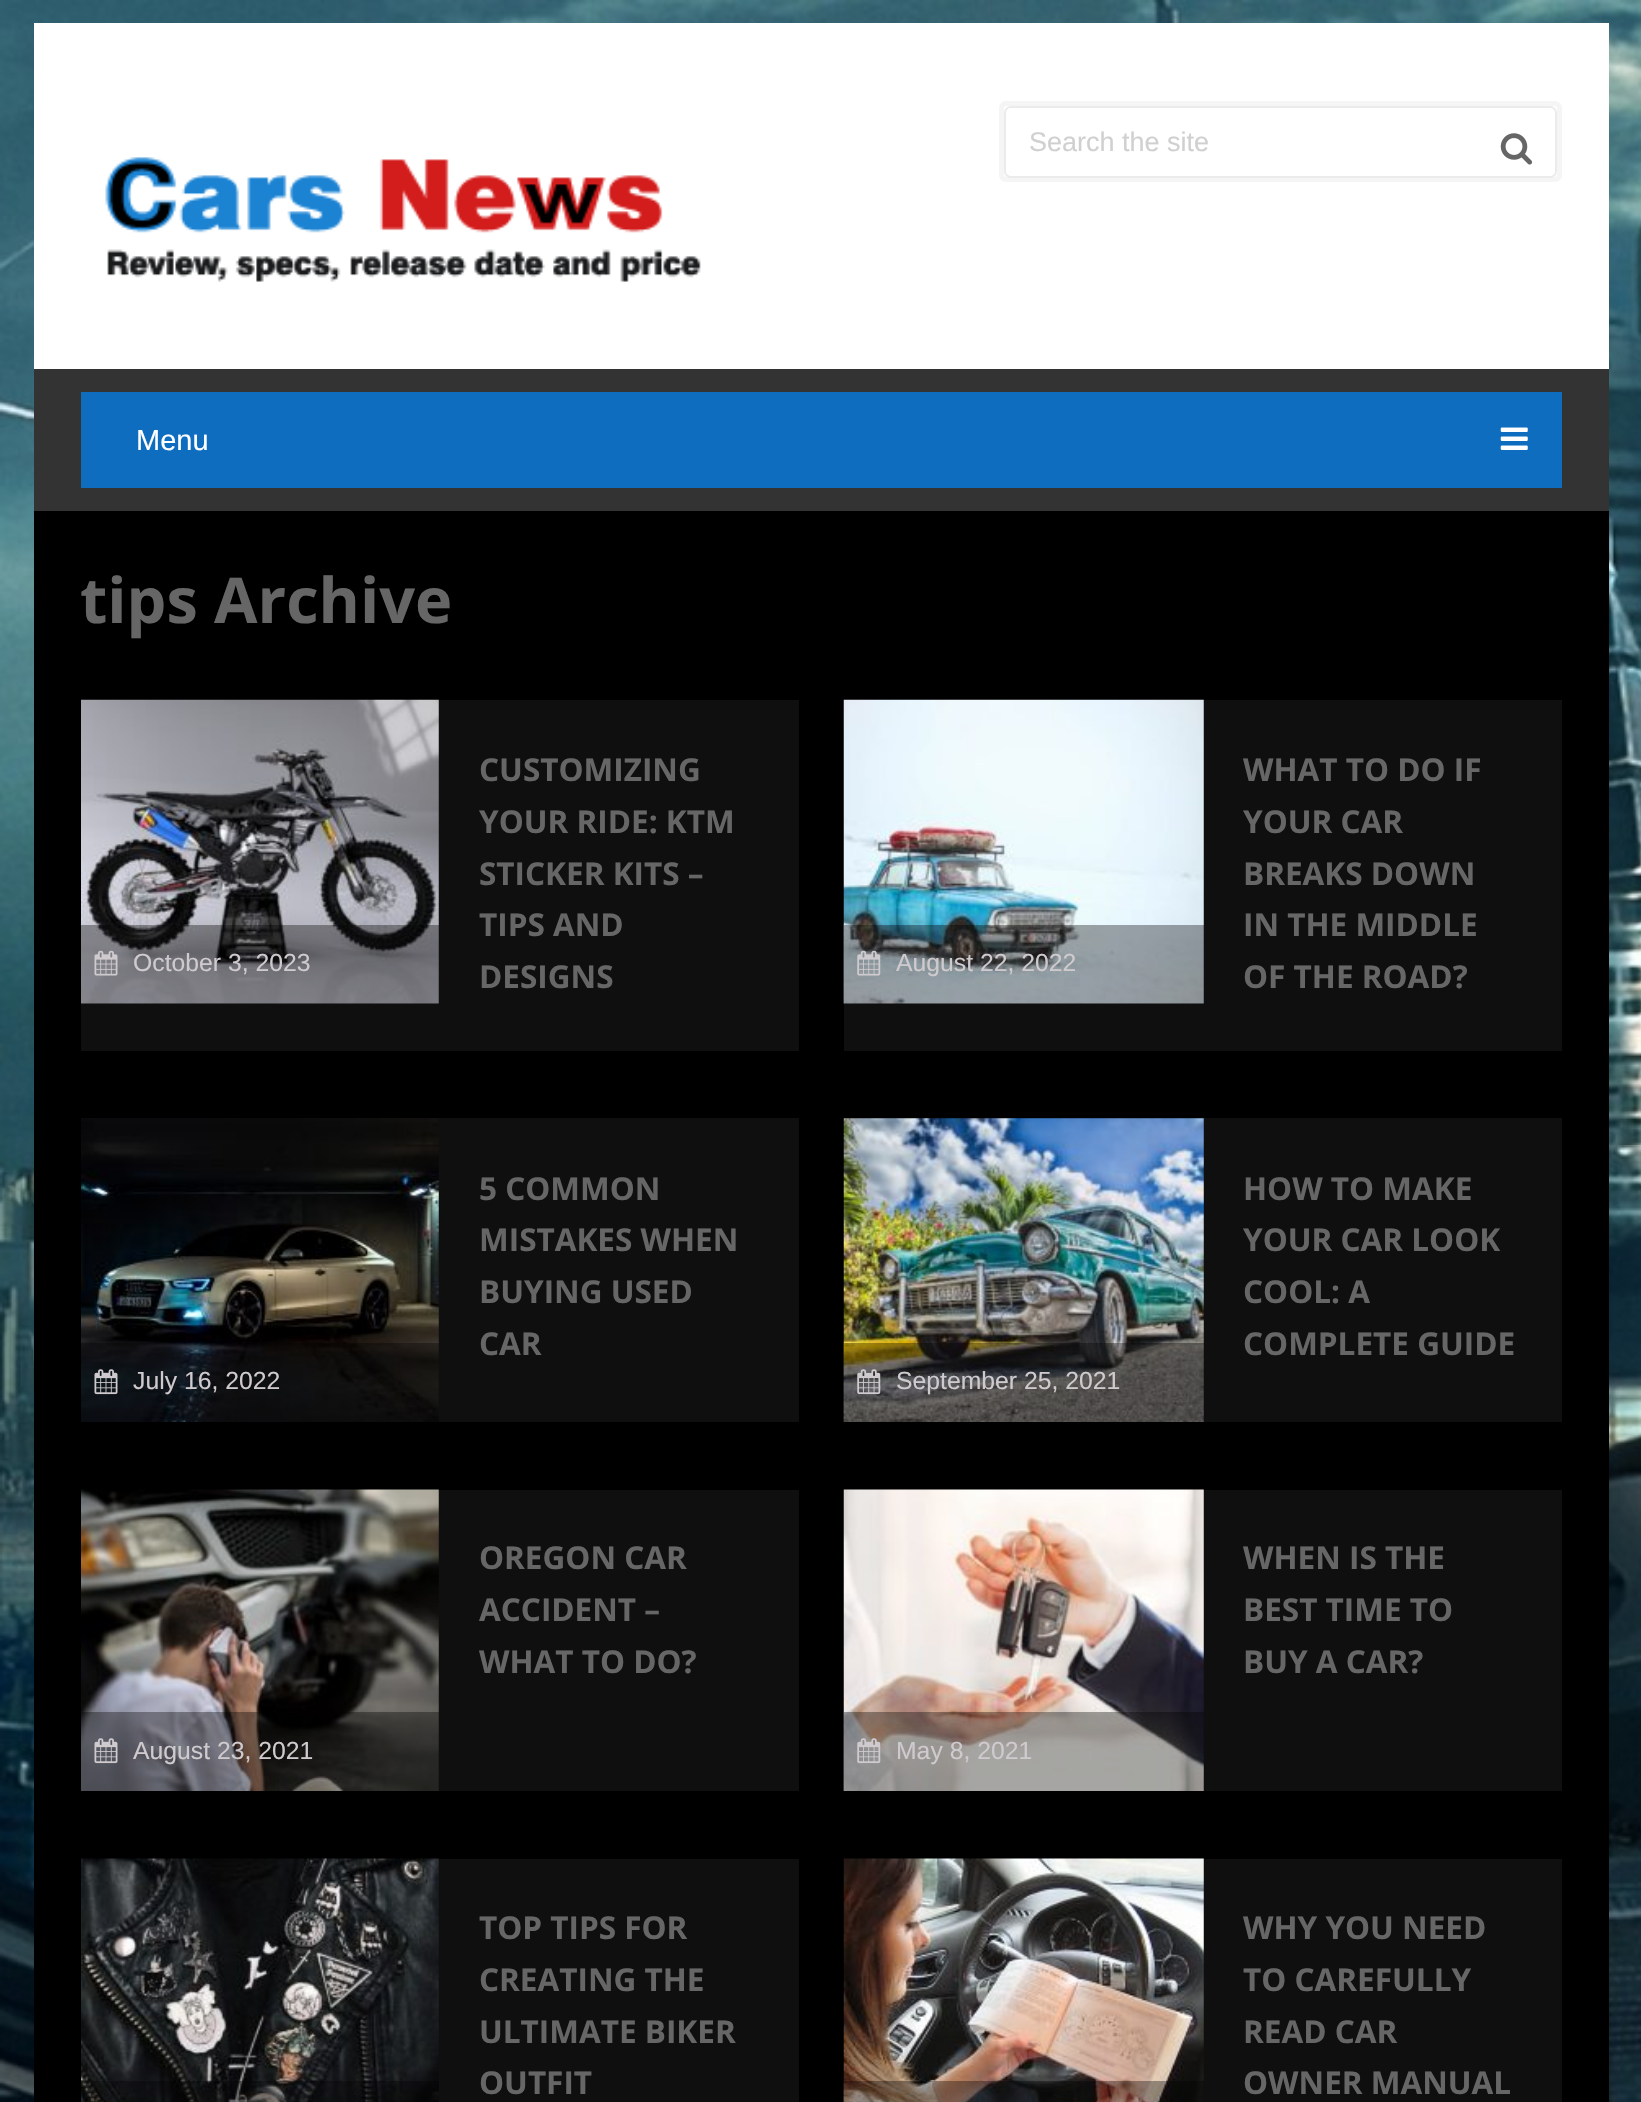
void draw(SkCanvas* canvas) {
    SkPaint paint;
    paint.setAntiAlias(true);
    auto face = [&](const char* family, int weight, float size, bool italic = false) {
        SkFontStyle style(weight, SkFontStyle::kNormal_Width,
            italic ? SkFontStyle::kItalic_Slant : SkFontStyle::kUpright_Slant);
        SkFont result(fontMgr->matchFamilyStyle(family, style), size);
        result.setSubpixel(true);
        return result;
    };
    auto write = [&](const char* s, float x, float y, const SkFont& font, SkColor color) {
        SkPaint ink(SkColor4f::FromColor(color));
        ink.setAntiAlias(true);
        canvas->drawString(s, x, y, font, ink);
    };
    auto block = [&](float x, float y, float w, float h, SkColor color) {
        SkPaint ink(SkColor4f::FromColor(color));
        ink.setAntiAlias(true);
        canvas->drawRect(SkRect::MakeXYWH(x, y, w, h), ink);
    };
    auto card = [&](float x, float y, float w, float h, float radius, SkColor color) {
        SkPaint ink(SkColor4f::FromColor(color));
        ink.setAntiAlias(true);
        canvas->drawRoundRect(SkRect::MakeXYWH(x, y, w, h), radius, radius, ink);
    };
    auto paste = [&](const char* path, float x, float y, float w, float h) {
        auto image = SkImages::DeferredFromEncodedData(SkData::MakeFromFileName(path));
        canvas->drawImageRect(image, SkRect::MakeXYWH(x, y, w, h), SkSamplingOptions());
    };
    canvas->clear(SK_ColorWHITE);
    paste("pic1.png", 0, 0, 1641, 2102);
    block(34, 23, 1575, 346, SK_ColorWHITE);
    paint.setStyle(SkPaint::kStroke_Style);
    paint.setStrokeWidth(5);
    paint.setColor(SkColorSetRGB(245, 245, 245));
    canvas->drawRoundRect(SkRect::MakeXYWH(1001.5f, 103.5f, 558, 76), 4.5f, 4.5f, paint);
    paint.setStrokeWidth(2);
    paint.setColor(SkColorSetRGB(235, 235, 235));
    canvas->drawRoundRect(SkRect::MakeXYWH(1005, 107, 551, 70), 6, 6, paint);
    card(1006, 108, 549, 68, 5, SK_ColorWHITE);
    auto kFont1 = face("Liberation Sans", 400, 27);
    write("Search the site", 1029, 151, kFont1, SkColorSetRGB(208, 208, 208));
    paste("pic2.png", 1500, 133, 33, 32);
    paste("pic3.png", 105, 157, 596, 125);
    block(34, 369, 1575, 142, SkColorSetRGB(51, 51, 51));
    block(81, 392, 1481, 96, SkColorSetRGB(15, 109, 191));
    auto kFont2 = face("Liberation Sans", 400, 29);
    write("Menu", 136, 450, kFont2, SK_ColorWHITE);
    paste("pic4.png", 1500, 427, 28, 23);
    block(34, 511, 1575, 1591, SK_ColorBLACK);
    auto kFont3 = face("Open Sans", 700, 63);
    write("tips Archive", 80, 623, kFont3, SkColorSetRGB(102, 102, 102));
    block(81, 700, 718, 351, SkColorSetRGB(15, 15, 15));
    paste("pic5.png", 81, 699, 358, 305);
    block(81, 925, 358, 79, SkColorSetARGB(89, 0, 0, 0));
    paste("pic6.png", 94, 950, 24, 26);
    auto kFont4 = face("Liberation Sans", 400, 24.75f);
    write("October 3, 2023", 133, 971, kFont4, SkColorSetRGB(207, 202, 206));
    auto kFont5 = face("Open Sans", 700, 31.5f);
    write("CUSTOMIZING", 479, 781, kFont5, SkColorSetRGB(102, 102, 102));
    write("YOUR RIDE: KTM", 479, 833, kFont5, SkColorSetRGB(102, 102, 102));
    write("STICKER KITS –", 479, 885, kFont5, SkColorSetRGB(102, 102, 102));
    write("TIPS AND", 479, 936, kFont5, SkColorSetRGB(102, 102, 102));
    write("DESIGNS", 479, 988, kFont5, SkColorSetRGB(102, 102, 102));
    block(844, 700, 718, 351, SkColorSetRGB(15, 15, 15));
    paste("pic7.png", 843, 699, 361, 305);
    block(844, 925, 360, 79, SkColorSetARGB(89, 0, 0, 0));
    paste("pic8.png", 857, 950, 24, 26);
    write("August 22, 2022", 896, 971, kFont4, SkColorSetRGB(207, 202, 206));
    write("WHAT TO DO IF", 1243, 781, kFont5, SkColorSetRGB(102, 102, 102));
    write("YOUR CAR", 1243, 833, kFont5, SkColorSetRGB(102, 102, 102));
    write("BREAKS DOWN", 1243, 885, kFont5, SkColorSetRGB(102, 102, 102));
    write("IN THE MIDDLE", 1243, 936, kFont5, SkColorSetRGB(102, 102, 102));
    write("OF THE ROAD?", 1243, 988, kFont5, SkColorSetRGB(102, 102, 102));
    block(81, 1118, 718, 304, SkColorSetRGB(15, 15, 15));
    write("5 COMMON", 479, 1200, kFont5, SkColorSetRGB(102, 102, 102));
    write("MISTAKES WHEN", 479, 1251, kFont5, SkColorSetRGB(102, 102, 102));
    write("BUYING USED", 479, 1303, kFont5, SkColorSetRGB(102, 102, 102));
    write("CAR", 479, 1355, kFont5, SkColorSetRGB(102, 102, 102));
    paste("pic9.png", 81, 1118, 358, 304);
    block(81, 1343, 358, 79, SkColorSetARGB(89, 0, 0, 0));
    paste("pic10.png", 94, 1369, 24, 26);
    write("July 16, 2022", 133, 1389, kFont4, SkColorSetRGB(207, 202, 206));
    block(844, 1118, 718, 304, SkColorSetRGB(15, 15, 15));
    write("HOW TO MAKE", 1243, 1200, kFont5, SkColorSetRGB(102, 102, 102));
    write("YOUR CAR LOOK", 1243, 1251, kFont5, SkColorSetRGB(102, 102, 102));
    write("COOL: A", 1243, 1303, kFont5, SkColorSetRGB(102, 102, 102));
    write("COMPLETE GUIDE", 1243, 1355, kFont5, SkColorSetRGB(102, 102, 102));
    paste("pic11.png", 843, 1118, 361, 304);
    block(844, 1343, 360, 79, SkColorSetARGB(89, 0, 0, 0));
    paste("pic12.png", 857, 1369, 24, 26);
    write("September 25, 2021", 896, 1389, kFont4, SkColorSetRGB(207, 202, 206));
    block(438, 1490, 361, 301, SkColorSetRGB(15, 15, 15));
    write("OREGON CAR", 479, 1569, kFont5, SkColorSetRGB(102, 102, 102));
    write("ACCIDENT –", 479, 1621, kFont5, SkColorSetRGB(102, 102, 102));
    write("WHAT TO DO?", 479, 1673, kFont5, SkColorSetRGB(102, 102, 102));
    paste("pic13.png", 81, 1489, 358, 302);
    block(81, 1712, 358, 79, SkColorSetARGB(89, 0, 0, 0));
    paste("pic14.png", 94, 1738, 24, 26);
    write("August 23, 2021", 133, 1759, kFont4, SkColorSetRGB(207, 202, 206));
    block(1203, 1490, 359, 301, SkColorSetRGB(15, 15, 15));
    write("WHEN IS THE", 1243, 1569, kFont5, SkColorSetRGB(102, 102, 102));
    write("BEST TIME TO", 1243, 1621, kFont5, SkColorSetRGB(102, 102, 102));
    write("BUY A CAR?", 1243, 1673, kFont5, SkColorSetRGB(102, 102, 102));
    paste("pic15.png", 843, 1489, 361, 302);
    block(844, 1712, 360, 79, SkColorSetARGB(89, 0, 0, 0));
    paste("pic16.png", 857, 1738, 24, 26);
    write("May 8, 2021", 896, 1759, kFont4, SkColorSetRGB(207, 202, 206));
    block(438, 1859, 361, 243, SkColorSetRGB(15, 15, 15));
    paste("pic17.png", 81, 1858, 358, 244);
    block(81, 2081, 358, 21, SkColorSetARGB(89, 0, 0, 0));
    write("TOP TIPS FOR", 479, 1939, kFont5, SkColorSetRGB(102, 102, 102));
    write("CREATING THE", 479, 1991, kFont5, SkColorSetRGB(102, 102, 102));
    write("ULTIMATE BIKER", 479, 2043, kFont5, SkColorSetRGB(102, 102, 102));
    write("OUTFIT", 479, 2094, kFont5, SkColorSetRGB(102, 102, 102));
    block(1203, 1859, 359, 243, SkColorSetRGB(15, 15, 15));
    paste("pic18.png", 843, 1858, 361, 244);
    block(844, 2081, 360, 21, SkColorSetARGB(89, 0, 0, 0));
    write("WHY YOU NEED", 1243, 1939, kFont5, SkColorSetRGB(102, 102, 102));
    write("TO CAREFULLY", 1243, 1991, kFont5, SkColorSetRGB(102, 102, 102));
    write("READ CAR", 1243, 2043, kFont5, SkColorSetRGB(102, 102, 102));
    write("OWNER MANUAL", 1243, 2094, kFont5, SkColorSetRGB(102, 102, 102));
}
